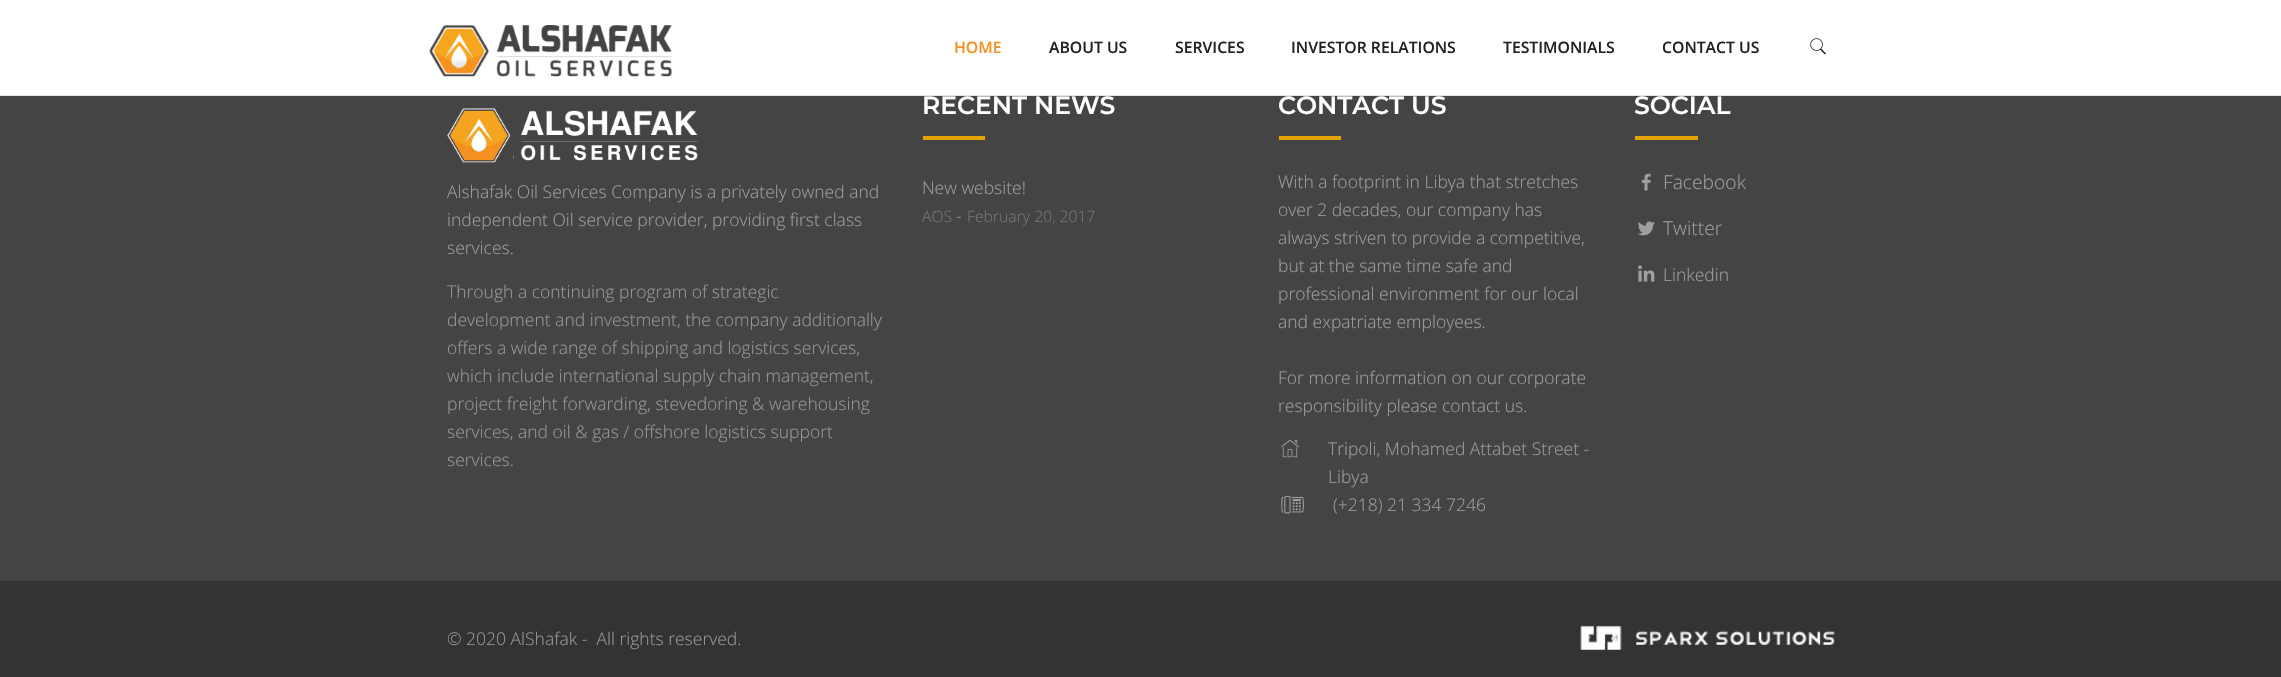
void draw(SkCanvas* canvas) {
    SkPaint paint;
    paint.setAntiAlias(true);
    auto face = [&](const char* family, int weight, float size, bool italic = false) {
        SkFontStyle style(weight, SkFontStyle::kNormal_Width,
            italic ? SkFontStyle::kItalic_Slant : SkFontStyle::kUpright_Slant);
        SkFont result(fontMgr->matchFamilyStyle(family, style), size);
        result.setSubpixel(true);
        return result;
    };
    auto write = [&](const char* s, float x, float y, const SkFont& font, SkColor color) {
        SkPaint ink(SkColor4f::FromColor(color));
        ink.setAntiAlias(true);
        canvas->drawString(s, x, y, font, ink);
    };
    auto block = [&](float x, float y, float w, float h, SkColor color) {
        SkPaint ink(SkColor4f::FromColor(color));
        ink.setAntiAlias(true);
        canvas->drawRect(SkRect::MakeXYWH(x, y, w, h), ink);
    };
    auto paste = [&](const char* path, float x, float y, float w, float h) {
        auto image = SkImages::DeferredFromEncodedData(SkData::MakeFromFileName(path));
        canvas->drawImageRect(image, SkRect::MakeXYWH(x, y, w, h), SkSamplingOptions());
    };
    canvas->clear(SkColorSetRGB(68, 68, 68));
    block(0, 0, 2281, 95, SK_ColorWHITE);
    block(0, 95, 2281, 1, SkColorSetRGB(230, 230, 230));
    paste("pic1.png", 429, 25, 243, 52);
    auto kFont1 = face("Open Sans", 600, 15.75f);
    write("HOME", 954, 53, kFont1, SkColorSetRGB(245, 145, 32));
    write("ABOUT US", 1049, 53, kFont1, SkColorSetRGB(34, 34, 34));
    write("SERVICES", 1175, 53, kFont1, SkColorSetRGB(34, 34, 34));
    write("INVESTOR RELATIONS", 1291, 53, kFont1, SkColorSetRGB(34, 34, 34));
    write("TESTIMONIALS", 1503, 53, kFont1, SkColorSetRGB(34, 34, 34));
    write("CONTACT US", 1662, 53, kFont1, SkColorSetRGB(34, 34, 34));
    paste("pic2.png", 1810, 38, 16, 17);
    paste("pic3.png", 447, 108, 251, 55);
    auto kFont2 = face("Open Sans", 300, 17.5f);
    write("Alshafak Oil Services Company is a privately owned and", 447, 198, kFont2, SkColorSetRGB(159, 159, 159));
    write("independent Oil service provider, providing first class", 447, 226, kFont2, SkColorSetRGB(159, 159, 159));
    write("services.", 447, 254, kFont2, SkColorSetRGB(159, 159, 159));
    write("Through a continuing program of strategic", 447, 298, kFont2, SkColorSetRGB(153, 153, 153));
    write("development and investment, the company additionally", 447, 326, kFont2, SkColorSetRGB(153, 153, 153));
    write("offers a wide range of shipping and logistics services,", 447, 354, kFont2, SkColorSetRGB(153, 153, 153));
    write("which include international supply chain management,", 447, 382, kFont2, SkColorSetRGB(153, 153, 153));
    write("project freight forwarding, stevedoring & warehousing", 447, 410, kFont2, SkColorSetRGB(153, 153, 153));
    write("services, and oil & gas / offshore logistics support", 447, 438, kFont2, SkColorSetRGB(153, 153, 153));
    write("services.", 447, 466, kFont2, SkColorSetRGB(153, 153, 153));
    auto kFont3 = face("Montserrat", 600, 25);
    write("RECENT NEWS", 922, 114, kFont3, SK_ColorWHITE);
    block(923, 136, 62, 4, SkColorSetRGB(229, 163, 0));
    write("New website!", 922, 194, kFont2, SkColorSetRGB(159, 159, 159));
    auto kFont4 = face("Open Sans", 300, 15.75f);
    write("AOS", 922, 222, kFont4, SkColorSetRGB(119, 119, 119));
    write("-", 956, 222, kFont2, SkColorSetRGB(153, 153, 153));
    write("February 20, 2017", 967, 222, kFont4, SkColorSetRGB(119, 119, 119));
    write("CONTACT US", 1278, 114, kFont3, SK_ColorWHITE);
    block(1279, 136, 62, 4, SkColorSetRGB(229, 163, 0));
    write("With a footprint in Libya that stretches", 1278, 188, kFont2, SkColorSetRGB(159, 159, 159));
    write("over 2 decades, our company has", 1278, 216, kFont2, SkColorSetRGB(159, 159, 159));
    write("always striven to provide a competitive,", 1278, 244, kFont2, SkColorSetRGB(159, 159, 159));
    write("but at the same time safe and", 1278, 272, kFont2, SkColorSetRGB(159, 159, 159));
    write("professional environment for our local", 1278, 300, kFont2, SkColorSetRGB(159, 159, 159));
    write("and expatriate employees.", 1278, 328, kFont2, SkColorSetRGB(159, 159, 159));
    write("For more information on our corporate", 1278, 384, kFont2, SkColorSetRGB(159, 159, 159));
    write("responsibility please contact us.", 1278, 412, kFont2, SkColorSetRGB(159, 159, 159));
    paste("pic4.png", 1281, 439, 18, 19);
    write("Tripoli, Mohamed Attabet Street -", 1328, 455, kFont2, SkColorSetRGB(159, 159, 159));
    write("Libya", 1328, 483, kFont2, SkColorSetRGB(159, 159, 159));
    paste("pic5.png", 1281, 495, 23, 19);
    write("(+218) 21 334 7246", 1333, 511, kFont2, SkColorSetRGB(159, 159, 159));
    write("SOCIAL", 1634, 114, kFont3, SK_ColorWHITE);
    block(1635, 136, 63, 4, SkColorSetRGB(229, 163, 0));
    paste("pic6.png", 1641, 173, 10, 18);
    auto kFont5 = face("Open Sans", 300, 19.25f);
    write("Facebook", 1663, 189, kFont5, SkColorSetRGB(159, 159, 159));
    paste("pic7.png", 1637, 221, 18, 15);
    write("Twitter", 1663, 235, kFont5, SkColorSetRGB(159, 159, 159));
    paste("pic8.png", 1638, 265, 17, 17);
    write("Linkedin", 1663, 281, kFont2, SkColorSetRGB(159, 159, 159));
    block(0, 581, 2281, 96, SkColorSetRGB(51, 51, 51));
    write("© 2020 AlShafak -  All rights reserved.", 447, 645, kFont2, SkColorSetRGB(153, 153, 153));
    paste("pic9.png", 1580, 625, 255, 25);
}
